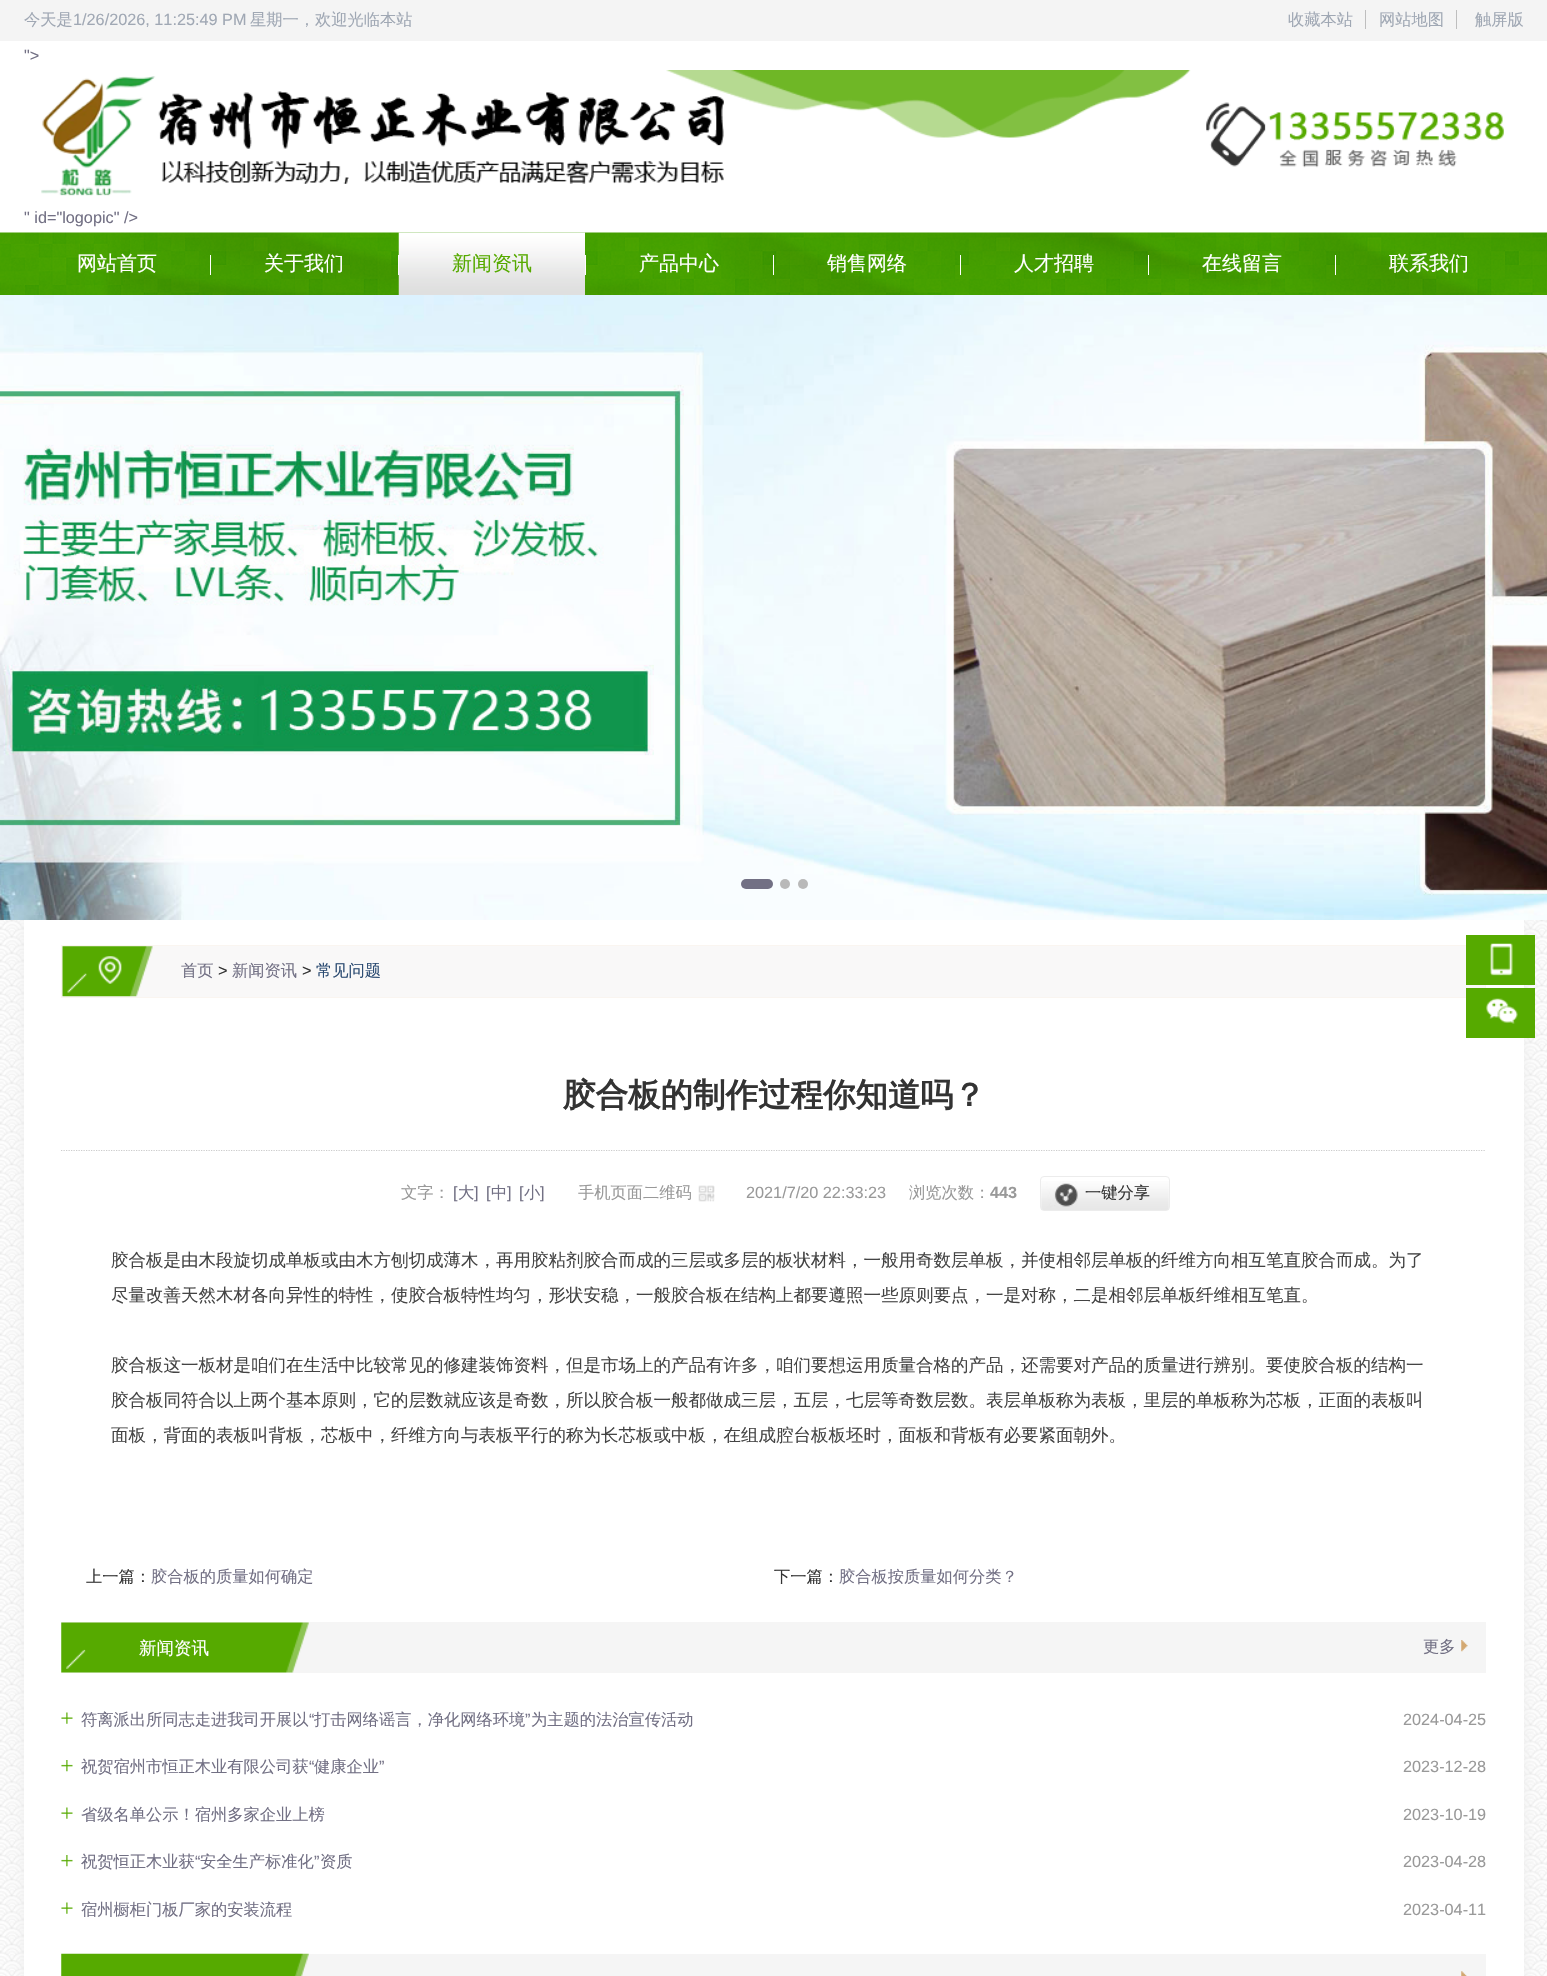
void draw(SkCanvas* canvas) {
    SkPaint paint;
    paint.setAntiAlias(true);
    auto face = [&](const char* family, int weight, float size, bool italic = false) {
        SkFontStyle style(weight, SkFontStyle::kNormal_Width,
            italic ? SkFontStyle::kItalic_Slant : SkFontStyle::kUpright_Slant);
        SkFont result(fontMgr->matchFamilyStyle(family, style), size);
        result.setSubpixel(true);
        return result;
    };
    auto write = [&](const char* s, float x, float y, const SkFont& font, SkColor color) {
        SkPaint ink(SkColor4f::FromColor(color));
        ink.setAntiAlias(true);
        canvas->drawString(s, x, y, font, ink);
    };
    auto block = [&](float x, float y, float w, float h, SkColor color) {
        SkPaint ink(SkColor4f::FromColor(color));
        ink.setAntiAlias(true);
        canvas->drawRect(SkRect::MakeXYWH(x, y, w, h), ink);
    };
    auto card = [&](float x, float y, float w, float h, float radius, SkColor color) {
        SkPaint ink(SkColor4f::FromColor(color));
        ink.setAntiAlias(true);
        canvas->drawRoundRect(SkRect::MakeXYWH(x, y, w, h), radius, radius, ink);
    };
    auto paste = [&](const char* path, float x, float y, float w, float h) {
        auto image = SkImages::DeferredFromEncodedData(SkData::MakeFromFileName(path));
        canvas->drawImageRect(image, SkRect::MakeXYWH(x, y, w, h), SkSamplingOptions());
    };
    canvas->clear(SK_ColorWHITE);
    block(0, 0, 1547, 41, SkColorSetRGB(244, 244, 244));
    auto kFont1 = face("WenQuanYi Zen Hei", 500, 16.25f);
    write("今天是", 24, 25, kFont1, SkColorSetRGB(160, 168, 180));
    auto kFont2 = face("Liberation Sans", 400, 16.25f);
    write("1/26/2026, 11:25:49 PM", 73, 25, kFont2, SkColorSetRGB(160, 168, 180));
    write("星期一，欢迎光临本站", 250, 25, kFont1, SkColorSetRGB(160, 168, 180));
    write("收藏本站", 1288, 25, kFont1, SkColorSetRGB(160, 168, 180));
    block(1365, 10, 1, 19, SkColorSetRGB(190, 190, 190));
    write("网站地图", 1379, 25, kFont1, SkColorSetRGB(160, 168, 180));
    block(1456, 10, 1, 19, SkColorSetRGB(190, 190, 190));
    write("触屏版", 1475, 25, kFont1, SkColorSetRGB(160, 168, 180));
    write("\">", 24, 61, kFont2, SkColorSetRGB(114, 112, 132));
    paste("pic1.png", 41, 70, 1463, 126);
    write("\" id=\"logopic\" />", 24, 223, kFont2, SkColorSetRGB(114, 112, 132));
    paste("pic2.png", 0, 232, 1547, 63);
    auto kFont3 = face("WenQuanYi Zen Hei", 500, 20);
    write("网站首页", 77, 270, kFont3, SK_ColorWHITE);
    block(210, 255, 1, 20, SK_ColorWHITE);
    write("关于我们", 264, 270, kFont3, SK_ColorWHITE);
    block(398, 255, 1, 20, SK_ColorWHITE);
    paste("pic3.png", 398, 232, 187, 63);
    write("新闻资讯", 452, 270, kFont3, SkColorSetRGB(86, 170, 0));
    block(585, 255, 1, 20, SK_ColorWHITE);
    write("产品中心", 639, 270, kFont3, SK_ColorWHITE);
    block(773, 255, 1, 20, SK_ColorWHITE);
    write("销售网络", 827, 270, kFont3, SK_ColorWHITE);
    block(960, 255, 1, 20, SK_ColorWHITE);
    write("人才招聘", 1014, 270, kFont3, SK_ColorWHITE);
    block(1148, 255, 1, 20, SK_ColorWHITE);
    write("在线留言", 1202, 270, kFont3, SK_ColorWHITE);
    block(1335, 255, 1, 20, SK_ColorWHITE);
    write("联系我们", 1389, 270, kFont3, SK_ColorWHITE);
    paste("pic5.png", 0, 920, 1547, 1056);
    paint.setColor(SkColorSetRGB(238, 238, 238));
    paint.setMaskFilter(SkMaskFilter::MakeBlur(kNormal_SkBlurStyle, 6));
    canvas->drawRect(SkRect::MakeXYWH(24, 921, 1500, 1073), paint);
    paint.setMaskFilter(nullptr);
    paste("pic4.png", 0, 295, 1547, 625);
    card(741, 879, 32, 10, 5, SkColorSetRGB(114, 112, 132));
    paint.setColor(SkColorSetRGB(185, 185, 185));
    canvas->drawCircle(785, 884, 5, paint);
    canvas->drawCircle(803, 884, 5, paint);
    block(24, 920, 1500, 1056, SK_ColorWHITE);
    paint.setColor(SkColorSetRGB(249, 248, 248));
    canvas->drawRect(SkRect::MakeXYWH(61.5f, 945.5f, 1424, 52), paint);
    paint.setStyle(SkPaint::kStroke_Style);
    paint.setStrokeWidth(1);
    paint.setColor(SkColorSetRGB(250, 245, 240));
    canvas->drawRect(SkRect::MakeXYWH(61.5f, 945.5f, 1424, 52), paint);
    paste("pic6.png", 62, 946, 91, 51);
    write("首页", 181, 976, kFont1, SkColorSetRGB(114, 112, 132));
    write(">", 218, 976, kFont2, SkColorSetRGB(51, 51, 51));
    write("新闻资讯", 232, 976, kFont1, SkColorSetRGB(114, 112, 132));
    write(">", 302, 976, kFont2, SkColorSetRGB(51, 51, 51));
    write("常见问题", 316, 976, kFont1, SkColorSetRGB(42, 74, 113));
    paint.setStrokeWidth(1.2f);
    paint.setColor(SkColorSetRGB(204, 204, 204));
    paint.setPathEffect(SkDashPathEffect::Make({{1.25f, 1.25f}}, 0));
    canvas->drawPath(SkPathBuilder().moveTo(61, 1150.5f).lineTo(1486, 1150.5f).detach(), paint);
    paint.setPathEffect(nullptr);
    auto kFont4 = face("WenQuanYi Zen Hei", 700, 32.5f);
    write("胶合板的制作过程你知道吗？", 563, 1106, kFont4, SkColorSetRGB(51, 51, 51));
    write("文字：", 401, 1198, kFont1, SkColorSetRGB(153, 153, 153));
    write("[", 453, 1198, kFont2, SkColorSetRGB(114, 112, 132));
    write("大", 458, 1198, kFont1, SkColorSetRGB(114, 112, 132));
    write("]", 474, 1198, kFont2, SkColorSetRGB(114, 112, 132));
    write("[", 486, 1198, kFont2, SkColorSetRGB(114, 112, 132));
    write("中", 491, 1198, kFont1, SkColorSetRGB(114, 112, 132));
    write("]", 507, 1198, kFont2, SkColorSetRGB(114, 112, 132));
    write("[", 519, 1198, kFont2, SkColorSetRGB(114, 112, 132));
    write("小", 524, 1198, kFont1, SkColorSetRGB(114, 112, 132));
    write("]", 540, 1198, kFont2, SkColorSetRGB(114, 112, 132));
    paste("pic7.png", 698, 1185, 17, 17);
    write("手机页面二维码", 578, 1198, kFont1, SkColorSetRGB(153, 153, 153));
    write("2021/7/20 22:33:23", 746, 1198, kFont2, SkColorSetRGB(153, 153, 153));
    write("浏览次数：", 909, 1198, kFont1, SkColorSetRGB(153, 153, 153));
    auto kFont5 = face("Liberation Sans", 700, 16.25f);
    write("443", 990, 1198, kFont5, SkColorSetRGB(153, 153, 153));
    paste("pic8.png", 1041, 1181, 128, 29);
    paint.setStrokeWidth(1);
    paint.setColor(SkColorSetRGB(236, 236, 236));
    canvas->drawRoundRect(SkRect::MakeXYWH(1040.5f, 1176.5f, 129, 34), 3.5f, 3.5f, paint);
    write("一键分享", 1085, 1198, kFont1, SkColorSetRGB(51, 51, 51));
    auto kFont6 = face("WenQuanYi Zen Hei", 500, 17.5f);
    write("胶合板是由木段旋切成单板或由木方刨切成薄木，再用胶粘剂胶合而成的三层或多层的板状材料，一般用奇数层单板，并使相邻层单板的纤维方向相互笔直胶合而成。为了", 111, 1266, kFont6, SkColorSetRGB(68, 68, 68));
    write("尽量改善天然木材各向异性的特性，使胶合板特性均匀，形状安稳，一般胶合板在结构上都要遵照一些原则要点，一是对称，二是相邻层单板纤维相互笔直。", 111, 1301, kFont6, SkColorSetRGB(68, 68, 68));
    write("胶合板这一板材是咱们在生活中比较常见的修建装饰资料，但是市场上的产品有许多，咱们要想运用质量合格的产品，还需要对产品的质量进行辨别。要使胶合板的结构一", 111, 1371, kFont6, SkColorSetRGB(68, 68, 68));
    write("胶合板同符合以上两个基本原则，它的层数就应该是奇数，所以胶合板一般都做成三层，五层，七层等奇数层数。表层单板称为表板，里层的单板称为芯板，正面的表板叫", 111, 1406, kFont6, SkColorSetRGB(68, 68, 68));
    write("面板，背面的表板叫背板，芯板中，纤维方向与表板平行的称为长芯板或中板，在组成腔台板板坯时，面板和背板有必要紧面朝外。", 111, 1441, kFont6, SkColorSetRGB(68, 68, 68));
    write("上一篇：", 86, 1582, kFont1, SkColorSetRGB(51, 51, 51));
    write("胶合板的质量如何确定", 151, 1582, kFont1, SkColorSetRGB(114, 112, 132));
    write("下一篇：", 774, 1582, kFont1, SkColorSetRGB(51, 51, 51));
    write("胶合板按质量如何分类？", 839, 1582, kFont1, SkColorSetRGB(114, 112, 132));
    block(61, 1622, 1425, 51, SkColorSetRGB(245, 245, 245));
    paste("pic9.png", 61, 1622, 248, 51);
    write("新闻资讯", 139, 1654, kFont6, SK_ColorWHITE);
    paste("pic10.png", 1461, 1640, 7, 12);
    write("更多", 1423, 1652, kFont1, SkColorSetRGB(114, 112, 132));
    paste("pic11.png", 61, 1712, 12, 12);
    write("符离派出所同志走进我司开展以", 81, 1725, kFont1, SkColorSetRGB(114, 112, 132));
    write("“", 309, 1725, kFont2, SkColorSetRGB(114, 112, 132));
    write("打击网络谣言，净化网络环境", 314, 1725, kFont1, SkColorSetRGB(114, 112, 132));
    write("”", 525, 1725, kFont2, SkColorSetRGB(114, 112, 132));
    write("为主题的法治宣传活动", 531, 1725, kFont1, SkColorSetRGB(114, 112, 132));
    write("2024-04-25", 1403, 1725, kFont2, SkColorSetRGB(153, 153, 153));
    paste("pic12.png", 61, 1760, 12, 12);
    write("祝贺宿州市恒正木业有限公司获", 81, 1772, kFont1, SkColorSetRGB(114, 112, 132));
    write("“", 309, 1772, kFont2, SkColorSetRGB(114, 112, 132));
    write("健康企业", 314, 1772, kFont1, SkColorSetRGB(114, 112, 132));
    write("”", 379, 1772, kFont2, SkColorSetRGB(114, 112, 132));
    write("2023-12-28", 1403, 1772, kFont2, SkColorSetRGB(153, 153, 153));
    paste("pic11.png", 61, 1807, 12, 12);
    write("省级名单公示！宿州多家企业上榜", 81, 1820, kFont1, SkColorSetRGB(114, 112, 132));
    write("2023-10-19", 1403, 1820, kFont2, SkColorSetRGB(153, 153, 153));
    paste("pic12.png", 61, 1855, 12, 12);
    write("祝贺恒正木业获", 81, 1867, kFont1, SkColorSetRGB(114, 112, 132));
    write("“", 195, 1867, kFont2, SkColorSetRGB(114, 112, 132));
    write("安全生产标准化", 200, 1867, kFont1, SkColorSetRGB(114, 112, 132));
    write("”", 314, 1867, kFont2, SkColorSetRGB(114, 112, 132));
    write("资质", 320, 1867, kFont1, SkColorSetRGB(114, 112, 132));
    write("2023-04-28", 1403, 1867, kFont2, SkColorSetRGB(153, 153, 153));
    paste("pic11.png", 61, 1902, 12, 12);
    write("宿州橱柜门板厂家的安装流程", 81, 1915, kFont1, SkColorSetRGB(114, 112, 132));
    write("2023-04-11", 1403, 1915, kFont2, SkColorSetRGB(153, 153, 153));
    block(61, 1954, 1425, 22, SkColorSetRGB(245, 245, 245));
    paste("pic13.png", 61, 1953, 248, 23);
    paste("pic14.png", 1461, 1971, 6, 5);
    block(1466, 935, 69, 50, SkColorSetRGB(86, 170, 0));
    paste("pic15.png", 1490, 943, 23, 33);
    block(1466, 988, 69, 50, SkColorSetRGB(86, 170, 0));
    paste("pic16.png", 1486, 998, 32, 26);
}
